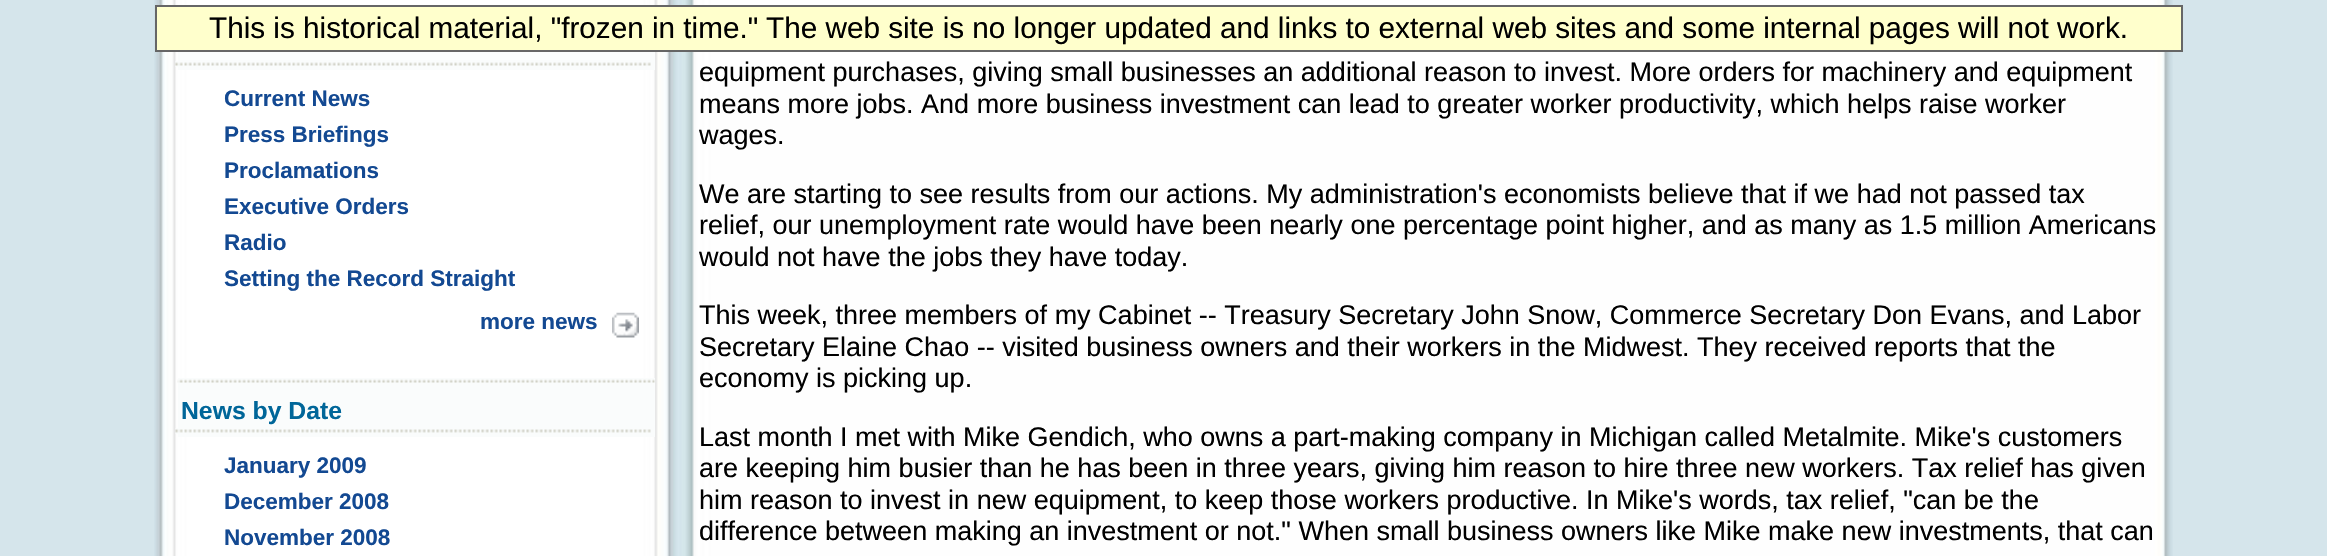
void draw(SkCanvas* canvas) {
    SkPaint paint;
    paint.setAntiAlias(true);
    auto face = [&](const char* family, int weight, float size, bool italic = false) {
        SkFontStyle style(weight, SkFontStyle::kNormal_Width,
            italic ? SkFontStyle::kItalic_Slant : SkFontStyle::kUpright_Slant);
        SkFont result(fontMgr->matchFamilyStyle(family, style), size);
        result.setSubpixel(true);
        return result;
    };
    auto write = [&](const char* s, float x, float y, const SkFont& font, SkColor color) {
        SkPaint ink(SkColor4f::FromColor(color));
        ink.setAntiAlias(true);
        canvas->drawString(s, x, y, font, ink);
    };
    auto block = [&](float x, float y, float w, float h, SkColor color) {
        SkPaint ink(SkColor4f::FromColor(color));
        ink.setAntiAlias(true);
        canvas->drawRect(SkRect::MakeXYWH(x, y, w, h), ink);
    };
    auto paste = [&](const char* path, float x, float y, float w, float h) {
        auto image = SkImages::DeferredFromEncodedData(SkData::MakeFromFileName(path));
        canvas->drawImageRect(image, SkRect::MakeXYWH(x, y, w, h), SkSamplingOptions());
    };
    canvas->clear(SkColorSetRGB(213, 229, 235));
    paste("pic1.png", 154, 0, 2019, 556);
    paste("pic2.png", 158, 0, 515, 556);
    paint.setColor(SkColorSetRGB(255, 255, 204));
    canvas->drawRect(SkRect::MakeXYWH(156, 6, 2026, 45), paint);
    paint.setStyle(SkPaint::kStroke_Style);
    paint.setStrokeWidth(2);
    paint.setColor(SkColorSetRGB(102, 102, 102));
    canvas->drawRect(SkRect::MakeXYWH(156, 6, 2026, 45), paint);
    auto kFont1 = face("Liberation Sans", 400, 29.7f);
    write("This is historical material, \"frozen in time.\"", 209, 38, kFont1, SK_ColorBLACK);
    write("The web site is no longer updated and links to external web sites and some internal pages will not work.", 766, 38, kFont1, SK_ColorBLACK);
    block(178, 52, 477, 18, SkColorSetRGB(250, 252, 252));
    paste("pic3.png", 175, 61, 476, 6);
    auto kFont2 = face("Liberation Sans", 700, 22.5f);
    write("Current News", 224, 106, kFont2, SkColorSetRGB(19, 73, 146));
    write("Press Briefings", 224, 142, kFont2, SkColorSetRGB(19, 73, 146));
    write("Proclamations", 224, 178, kFont2, SkColorSetRGB(19, 73, 146));
    write("Executive Orders", 224, 214, kFont2, SkColorSetRGB(19, 73, 146));
    write("Radio", 224, 250, kFont2, SkColorSetRGB(19, 73, 146));
    write("Setting the Record Straight", 224, 286, kFont2, SkColorSetRGB(19, 73, 146));
    write("more news", 480, 329, kFont2, SkColorSetRGB(19, 73, 146));
    paste("pic4.png", 612, 312, 27, 26);
    block(178, 378, 477, 59, SkColorSetRGB(250, 252, 252));
    paste("pic5.png", 177, 379, 478, 4);
    auto kFont3 = face("Liberation Sans", 700, 24.75f);
    write("News by Date", 181, 419, kFont3, SkColorSetRGB(0, 102, 153));
    paste("pic6.png", 175, 428, 476, 6);
    write("January 2009", 224, 473, kFont2, SkColorSetRGB(19, 73, 146));
    write("December 2008", 224, 509, kFont2, SkColorSetRGB(19, 73, 146));
    write("November 2008", 224, 545, kFont2, SkColorSetRGB(19, 73, 146));
    auto kFont4 = face("Liberation Sans", 400, 27);
    write("equipment purchases, giving small businesses an additional reason to invest. More orders for machinery and equipment", 699, 81, kFont4, SK_ColorBLACK);
    write("means more jobs. And more business investment can lead to greater worker productivity, which helps raise worker", 699, 113, kFont4, SK_ColorBLACK);
    write("wages.", 699, 144, kFont4, SK_ColorBLACK);
    write("We are starting to see results from our actions. My administration's economists believe that if we had not passed tax", 699, 203, kFont4, SK_ColorBLACK);
    write("relief, our unemployment rate would have been nearly one percentage point higher, and as many as 1.5 million Americans", 699, 234, kFont4, SK_ColorBLACK);
    write("would not have the jobs they have today.", 699, 266, kFont4, SK_ColorBLACK);
    write("This week, three members of my Cabinet -- Treasury Secretary John Snow, Commerce Secretary Don Evans, and Labor", 699, 324, kFont4, SK_ColorBLACK);
    write("Secretary Elaine Chao -- visited business owners and their workers in the Midwest. They received reports that the", 699, 356, kFont4, SK_ColorBLACK);
    write("economy is picking up.", 699, 387, kFont4, SK_ColorBLACK);
    write("Last month I met with Mike Gendich, who owns a part-making company in Michigan called Metalmite. Mike's customers", 699, 446, kFont4, SK_ColorBLACK);
    write("are keeping him busier than he has been in three years, giving him reason to hire three new workers. Tax relief has given", 699, 477, kFont4, SK_ColorBLACK);
    write("him reason to invest in new equipment, to keep those workers productive. In Mike's words, tax relief, \"can be the", 699, 509, kFont4, SK_ColorBLACK);
    write("difference between making an investment or not.\" When small business owners like Mike make new investments, that can", 699, 540, kFont4, SK_ColorBLACK);
}
